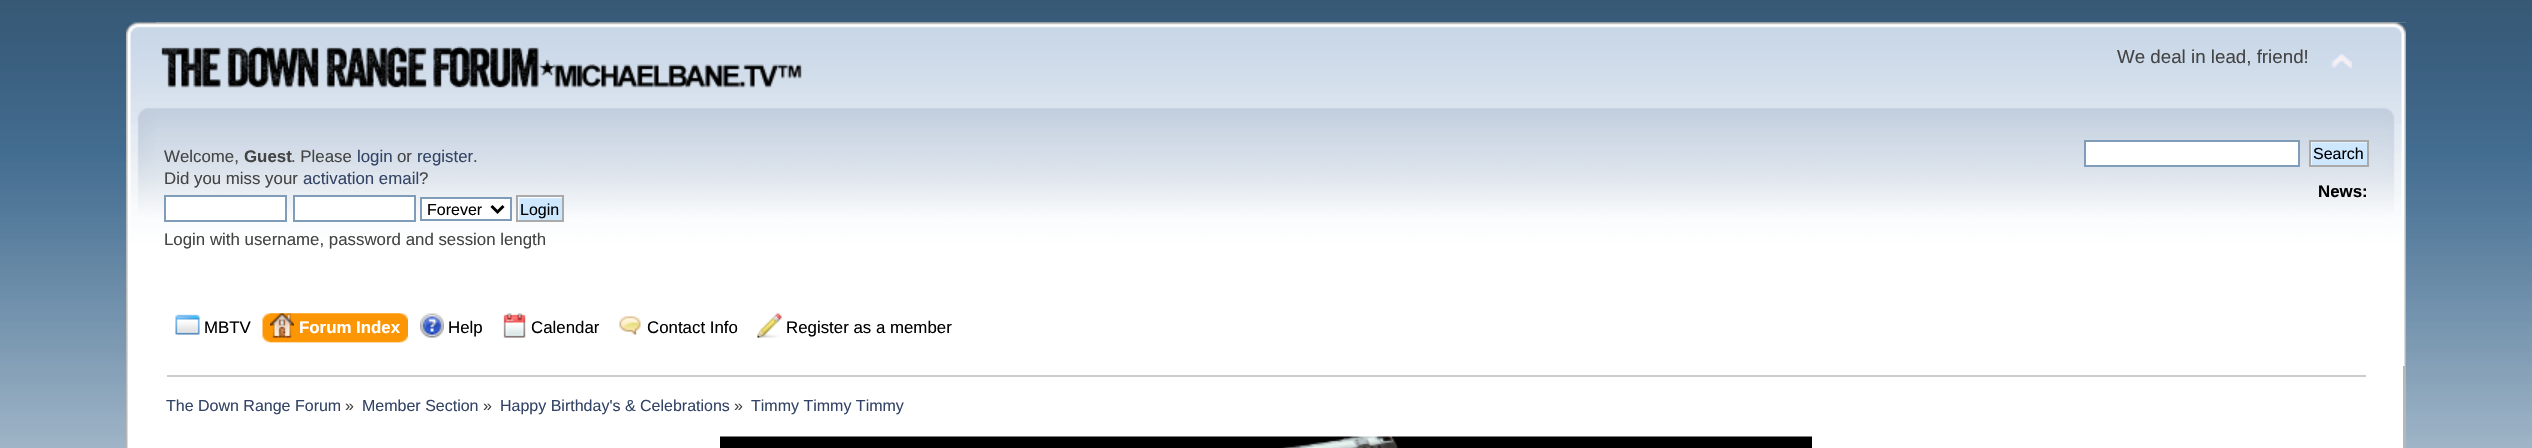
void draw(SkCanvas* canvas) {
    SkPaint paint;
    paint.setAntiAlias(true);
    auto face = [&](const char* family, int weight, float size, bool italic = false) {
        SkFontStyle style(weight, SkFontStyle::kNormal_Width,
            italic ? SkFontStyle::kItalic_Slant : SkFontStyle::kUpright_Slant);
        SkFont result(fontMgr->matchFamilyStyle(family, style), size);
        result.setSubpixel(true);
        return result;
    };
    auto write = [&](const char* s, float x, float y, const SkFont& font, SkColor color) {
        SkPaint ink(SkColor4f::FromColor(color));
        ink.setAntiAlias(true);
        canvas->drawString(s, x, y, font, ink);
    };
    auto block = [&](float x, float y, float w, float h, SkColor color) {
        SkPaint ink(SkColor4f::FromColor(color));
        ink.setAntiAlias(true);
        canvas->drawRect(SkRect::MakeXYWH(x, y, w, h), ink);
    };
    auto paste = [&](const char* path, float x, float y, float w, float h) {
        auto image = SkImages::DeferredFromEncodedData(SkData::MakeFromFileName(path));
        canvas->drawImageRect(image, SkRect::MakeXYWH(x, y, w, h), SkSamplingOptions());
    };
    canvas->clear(SK_ColorWHITE);
    paste("pic1.png", 0, 0, 2532, 448);
    paste("pic2.png", 126, 22, 2280, 344);
    paste("pic3.png", 156, 22, 2250, 344);
    paste("pic4.png", 161, 46, 641, 42);
    auto kFont1 = face("Liberation Sans", 400, 18.75f);
    write("We deal in lead, friend!", 2117, 63, kFont1, SkColorSetRGB(68, 68, 68));
    paste("pic5.png", 2331, 53, 22, 17);
    auto kFont2 = face("Liberation Sans", 400, 16.85f);
    write("Welcome,", 164, 162, kFont2, SkColorSetRGB(68, 68, 68));
    auto kFont3 = face("Liberation Sans", 700, 16.85f);
    write("Guest", 244, 162, kFont3, SkColorSetRGB(68, 68, 68));
    write(". Please", 291, 162, kFont2, SkColorSetRGB(68, 68, 68));
    write("login", 357, 162, kFont2, SkColorSetRGB(51, 68, 102));
    write("or", 397, 162, kFont2, SkColorSetRGB(68, 68, 68));
    write("register", 417, 162, kFont2, SkColorSetRGB(51, 68, 102));
    write(".", 473, 162, kFont2, SkColorSetRGB(68, 68, 68));
    write("Did you miss your", 164, 184, kFont2, SkColorSetRGB(68, 68, 68));
    write("activation email", 303, 184, kFont2, SkColorSetRGB(51, 68, 102));
    write("?", 419, 184, kFont2, SkColorSetRGB(68, 68, 68));
    paint.setColor(SK_ColorWHITE);
    canvas->drawRect(SkRect::MakeXYWH(165, 196, 121, 25), paint);
    paint.setStyle(SkPaint::kStroke_Style);
    paint.setStrokeWidth(2);
    paint.setColor(SkColorSetRGB(127, 157, 185));
    canvas->drawRect(SkRect::MakeXYWH(165, 196, 121, 25), paint);
    paint.setStyle(SkPaint::kFill_Style);
    paint.setColor(SK_ColorWHITE);
    canvas->drawRect(SkRect::MakeXYWH(294, 196, 121, 25), paint);
    paint.setStyle(SkPaint::kStroke_Style);
    paint.setColor(SkColorSetRGB(127, 157, 185));
    canvas->drawRect(SkRect::MakeXYWH(294, 196, 121, 25), paint);
    paint.setStyle(SkPaint::kFill_Style);
    paint.setColor(SK_ColorWHITE);
    canvas->drawRect(SkRect::MakeXYWH(421, 198, 90, 22), paint);
    paint.setStyle(SkPaint::kStroke_Style);
    paint.setColor(SkColorSetRGB(127, 157, 185));
    canvas->drawRect(SkRect::MakeXYWH(421, 198, 90, 22), paint);
    paint.setStrokeWidth(3);
    paint.setColor(SK_ColorBLACK);
    canvas->drawPath(SkPathBuilder().moveTo(491.5f, 206).lineTo(497.5f, 212).lineTo(503.5f, 206).detach(), paint);
    auto kFont4 = face("Liberation Sans", 400, 16);
    write("Forever", 427, 215, kFont4, SK_ColorBLACK);
    paste("pic6.png", 518, 197, 44, 23);
    paint.setStrokeWidth(2);
    paint.setColor(SkColorSetRGB(170, 170, 170));
    canvas->drawRect(SkRect::MakeXYWH(517, 196, 46, 25), paint);
    write("Login", 520, 215, kFont4, SK_ColorBLACK);
    write("Login with username, password and session length", 164, 245, kFont2, SkColorSetRGB(68, 68, 68));
    paint.setStyle(SkPaint::kFill_Style);
    paint.setColor(SK_ColorWHITE);
    canvas->drawRect(SkRect::MakeXYWH(2085, 141, 214, 25), paint);
    paint.setStyle(SkPaint::kStroke_Style);
    paint.setColor(SkColorSetRGB(127, 157, 185));
    canvas->drawRect(SkRect::MakeXYWH(2085, 141, 214, 25), paint);
    paste("pic7.png", 2311, 142, 56, 23);
    paint.setColor(SkColorSetRGB(170, 170, 170));
    canvas->drawRect(SkRect::MakeXYWH(2310, 141, 58, 25), paint);
    write("Search", 2313, 159, kFont4, SK_ColorBLACK);
    write("News:", 2318, 197, kFont3, SK_ColorBLACK);
    paste("pic8.png", 175, 314, 25, 21);
    write("MBTV", 204, 333, kFont2, SK_ColorBLACK);
    paste("pic9.png", 270, 313, 138, 30);
    paste("pic10.png", 262, 313, 139, 30);
    paste("pic11.png", 270, 313, 24, 25);
    write("Forum Index", 299, 333, kFont3, SK_ColorWHITE);
    paste("pic12.png", 420, 313, 24, 25);
    write("Help", 448, 333, kFont2, SK_ColorBLACK);
    paste("pic13.png", 503, 313, 23, 25);
    write("Calendar", 531, 333, kFont2, SK_ColorBLACK);
    paste("pic14.png", 619, 316, 22, 19);
    write("Contact Info", 647, 333, kFont2, SK_ColorBLACK);
    paste("pic15.png", 757, 313, 25, 25);
    write("Register as a member", 786, 333, kFont2, SK_ColorBLACK);
    block(128, 366, 2275, 82, SK_ColorWHITE);
    paste("pic16.png", 126, 366, 2, 82);
    block(2403, 366, 3, 82, SkColorSetRGB(183, 183, 183));
    block(167, 375, 2199, 2, SkColorSetRGB(204, 204, 204));
    write("The Down Range Forum", 166, 411, kFont4, SkColorSetRGB(51, 68, 102));
    write("»", 345, 411, kFont4, SkColorSetRGB(68, 68, 68));
    write("Member Section", 362, 411, kFont4, SkColorSetRGB(51, 68, 102));
    write("»", 483, 411, kFont4, SkColorSetRGB(68, 68, 68));
    write("Happy Birthday's & Celebrations", 500, 411, kFont4, SkColorSetRGB(51, 68, 102));
    write("»", 734, 411, kFont4, SkColorSetRGB(68, 68, 68));
    write("Timmy Timmy Timmy", 751, 411, kFont4, SkColorSetRGB(51, 68, 102));
    paste("pic17.png", 720, 436, 1092, 12);
}
